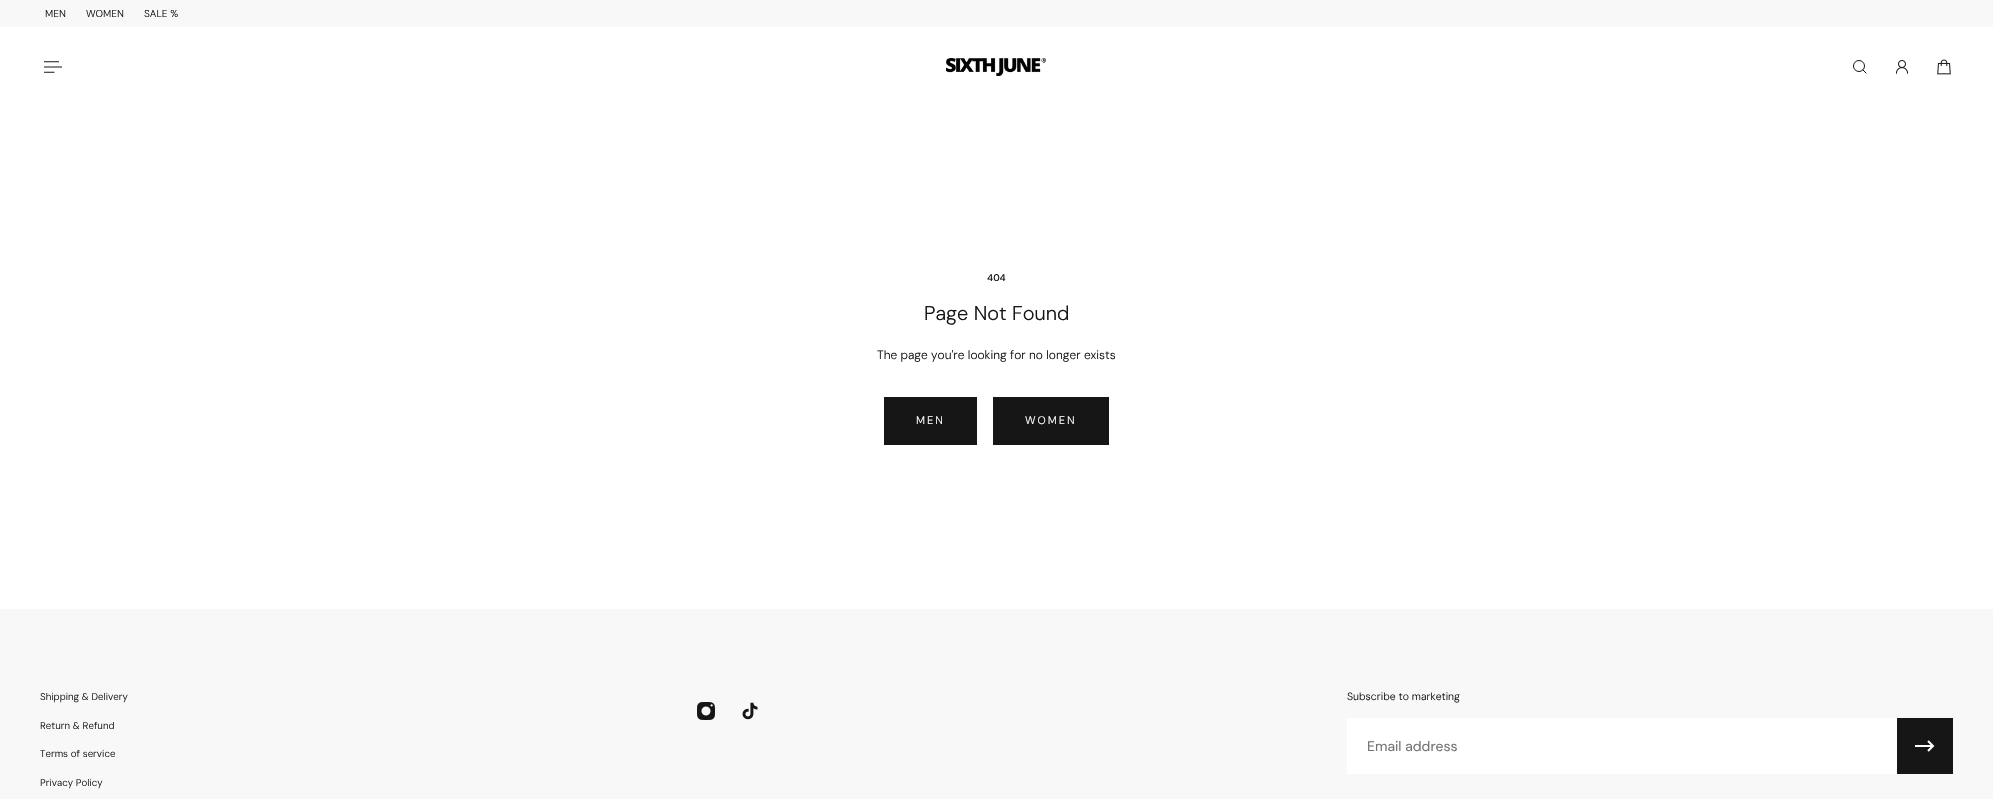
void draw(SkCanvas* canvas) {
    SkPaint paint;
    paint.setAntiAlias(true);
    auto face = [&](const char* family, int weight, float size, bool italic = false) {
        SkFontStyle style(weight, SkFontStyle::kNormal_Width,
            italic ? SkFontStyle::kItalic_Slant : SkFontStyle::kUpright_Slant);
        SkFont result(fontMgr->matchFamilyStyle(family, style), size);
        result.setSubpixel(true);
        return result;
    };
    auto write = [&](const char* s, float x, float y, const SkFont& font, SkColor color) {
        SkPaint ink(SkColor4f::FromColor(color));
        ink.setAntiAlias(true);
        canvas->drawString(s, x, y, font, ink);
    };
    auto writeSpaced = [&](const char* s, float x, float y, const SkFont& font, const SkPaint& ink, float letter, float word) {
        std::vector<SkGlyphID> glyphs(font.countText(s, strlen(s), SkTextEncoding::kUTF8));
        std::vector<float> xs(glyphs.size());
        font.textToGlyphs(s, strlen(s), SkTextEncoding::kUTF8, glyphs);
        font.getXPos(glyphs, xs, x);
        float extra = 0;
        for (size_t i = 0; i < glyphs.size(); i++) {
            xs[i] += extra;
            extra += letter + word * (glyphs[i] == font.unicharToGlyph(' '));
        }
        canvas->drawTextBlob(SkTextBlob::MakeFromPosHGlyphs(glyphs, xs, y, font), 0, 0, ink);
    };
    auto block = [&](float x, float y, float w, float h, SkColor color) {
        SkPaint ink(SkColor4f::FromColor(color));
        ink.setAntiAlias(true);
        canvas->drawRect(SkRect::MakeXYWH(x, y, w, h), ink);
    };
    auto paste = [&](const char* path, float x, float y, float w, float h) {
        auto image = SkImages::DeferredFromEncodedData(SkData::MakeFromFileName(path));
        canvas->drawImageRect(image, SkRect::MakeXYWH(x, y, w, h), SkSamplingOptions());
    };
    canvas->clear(SK_ColorWHITE);
    block(0, 0, 1993, 27, SkColorSetRGB(248, 248, 248));
    auto kFont1 = face("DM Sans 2", 300, 10);
    write("MEN", 45, 17, kFont1, SkColorSetRGB(22, 22, 22));
    write("WOMEN", 86, 17, kFont1, SkColorSetRGB(22, 22, 22));
    write("SALE %", 144, 17, kFont1, SkColorSetRGB(22, 22, 22));
    paste("pic1.png", 44, 61, 18, 12);
    paste("pic2.png", 946, 58, 100, 18);
    paint.setStyle(SkPaint::kStroke_Style);
    paint.setStrokeWidth(1);
    paint.setColor(SkColorSetRGB(22, 22, 22));
    canvas->drawCircle(1859, 66, 5.5f, paint);
    paint.setStrokeCap(SkPaint::kSquare_Cap);
    paint.setStrokeJoin(SkPaint::kRound_Join);
    canvas->drawPath(SkPathBuilder().moveTo(1863, 70).lineTo(1866, 73).detach(), paint);
    paste("pic3.png", 1895, 60, 14, 14);
    paste("pic4.png", 1937, 59, 14, 16);
    auto kFont2 = face("DM Sans", 500, 9.75f);
    write("404", 987, 281, kFont2, SkColorSetRGB(22, 22, 22));
    auto kFont3 = face("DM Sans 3", 300, 20);
    write("Page Not Found", 924, 320, kFont3, SkColorSetRGB(22, 22, 22));
    auto kFont4 = face("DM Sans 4", 300, 12);
    write("The page you're looking for no longer exists", 877, 359, kFont4, SkColorSetRGB(22, 22, 22));
    block(884, 397, 93, 48, SkColorSetRGB(22, 22, 22));
    auto kFont5 = face("DM Sans 2", 300, 11);
    paint.setStyle(SkPaint::kFill_Style);
    paint.setColor(SK_ColorWHITE);
    writeSpaced("MEN", 916, 424, kFont5, paint, 2, 0);
    block(993, 397, 116, 48, SkColorSetRGB(22, 22, 22));
    writeSpaced("WOMEN", 1025, 424, kFont5, paint, 2, 0);
    block(0, 609, 1993, 190, SkColorSetRGB(248, 248, 248));
    auto kFont6 = face("DM Sans 2", 300, 9.75f);
    write("Shipping & Delivery", 40, 700, kFont6, SkColorSetRGB(22, 22, 22));
    write("Return & Refund", 40, 729, kFont6, SkColorSetRGB(22, 22, 22));
    write("Terms of service", 40, 757, kFont6, SkColorSetRGB(22, 22, 22));
    write("Privacy Policy", 40, 786, kFont6, SkColorSetRGB(22, 22, 22));
    paste("pic5.png", 697, 702, 18, 18);
    paste("pic6.png", 742, 702, 16, 18);
    auto kFont7 = face("DM Sans", 300, 10.5f);
    write("Subscribe to marketing", 1347, 700, kFont7, SkColorSetRGB(22, 22, 22));
    block(1347, 718, 550, 56, SK_ColorWHITE);
    auto kFont8 = face("DM Sans", 400, 14);
    write("Email address", 1367, 751, kFont8, SkColorSetRGB(115, 115, 115));
    block(1897, 718, 56, 56, SkColorSetRGB(22, 22, 22));
    block(1915, 745, 18, 2, SK_ColorWHITE);
    paint.setStyle(SkPaint::kStroke_Style);
    paint.setStrokeWidth(2);
    paint.setStrokeCap(SkPaint::kButt_Cap);
    paint.setStrokeJoin(SkPaint::kMiter_Join);
    canvas->drawPath(SkPathBuilder().moveTo(1928, 741).lineTo(1933, 746).lineTo(1928, 751).detach(), paint);
}
